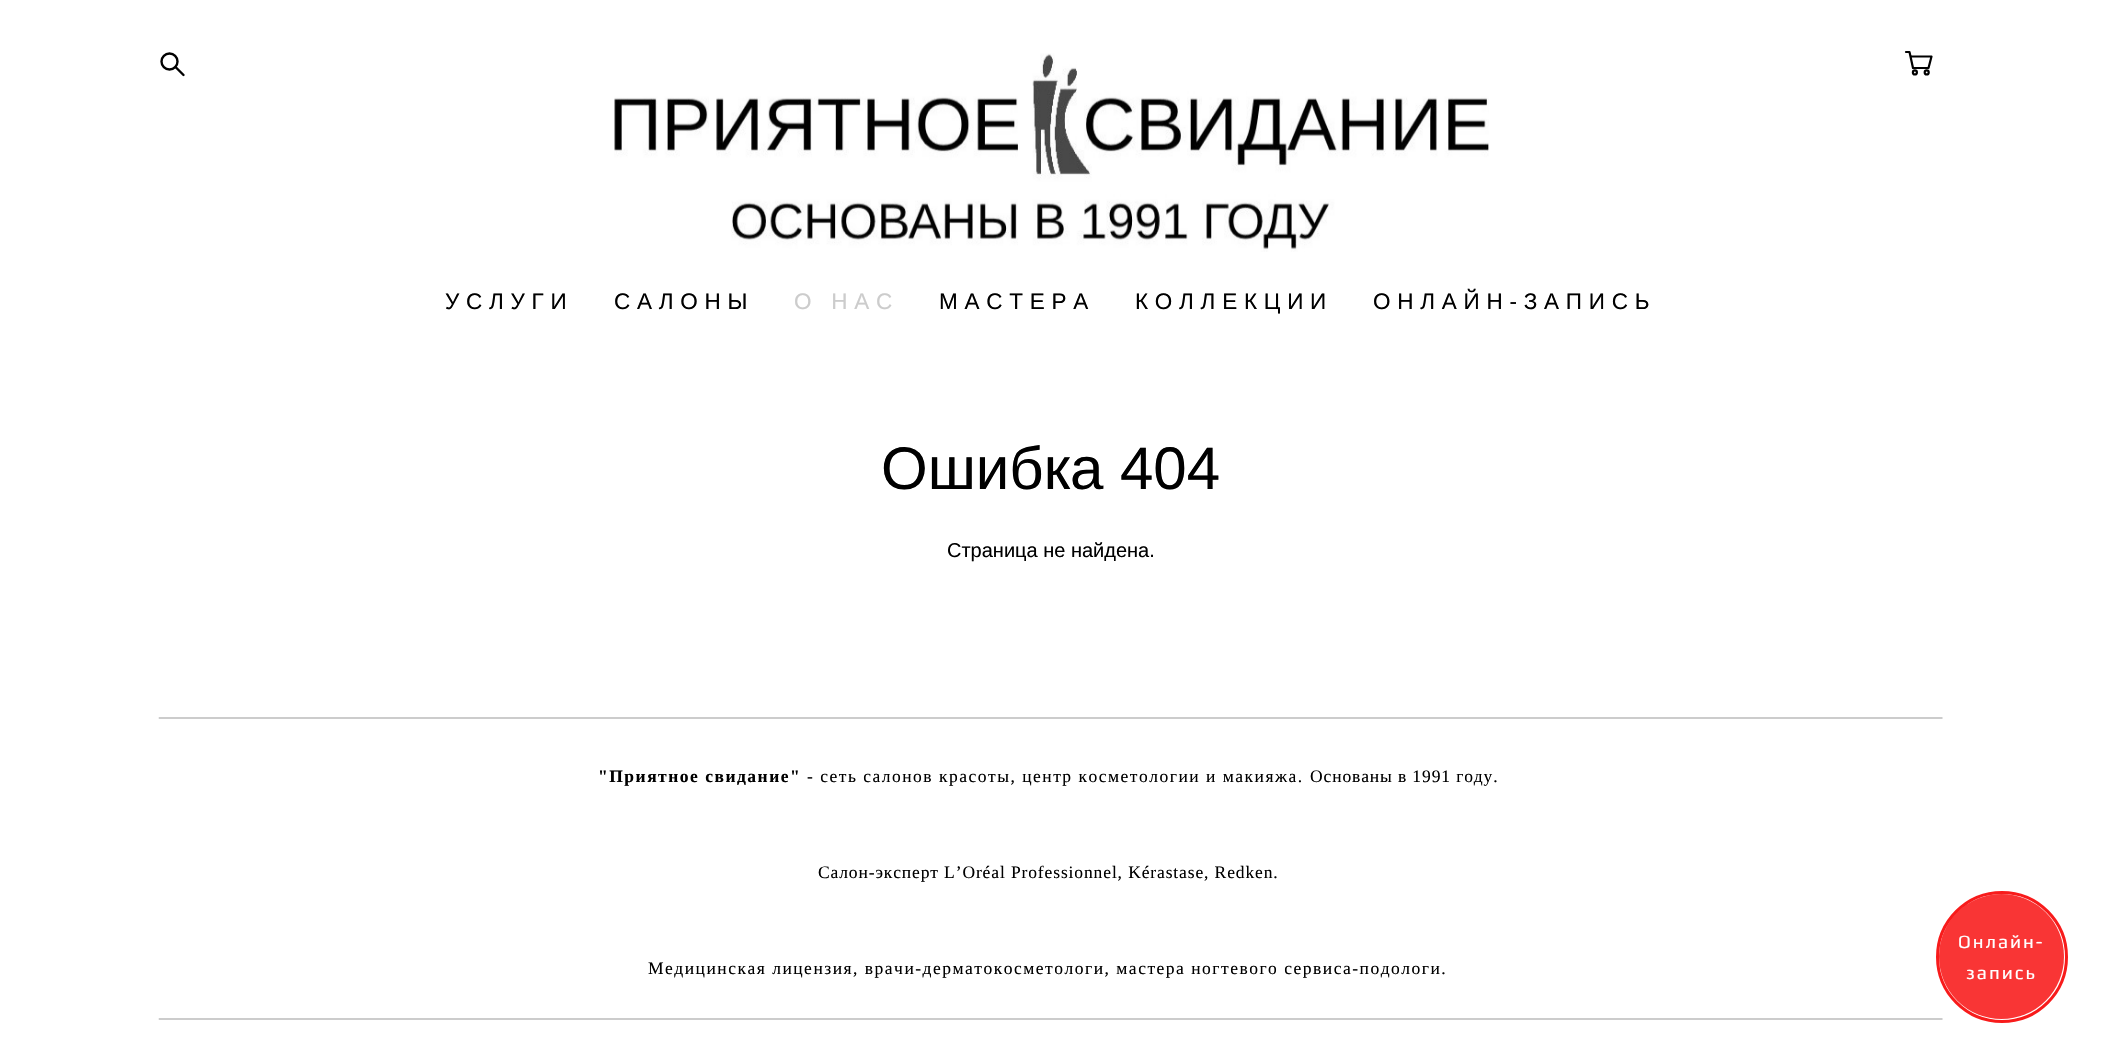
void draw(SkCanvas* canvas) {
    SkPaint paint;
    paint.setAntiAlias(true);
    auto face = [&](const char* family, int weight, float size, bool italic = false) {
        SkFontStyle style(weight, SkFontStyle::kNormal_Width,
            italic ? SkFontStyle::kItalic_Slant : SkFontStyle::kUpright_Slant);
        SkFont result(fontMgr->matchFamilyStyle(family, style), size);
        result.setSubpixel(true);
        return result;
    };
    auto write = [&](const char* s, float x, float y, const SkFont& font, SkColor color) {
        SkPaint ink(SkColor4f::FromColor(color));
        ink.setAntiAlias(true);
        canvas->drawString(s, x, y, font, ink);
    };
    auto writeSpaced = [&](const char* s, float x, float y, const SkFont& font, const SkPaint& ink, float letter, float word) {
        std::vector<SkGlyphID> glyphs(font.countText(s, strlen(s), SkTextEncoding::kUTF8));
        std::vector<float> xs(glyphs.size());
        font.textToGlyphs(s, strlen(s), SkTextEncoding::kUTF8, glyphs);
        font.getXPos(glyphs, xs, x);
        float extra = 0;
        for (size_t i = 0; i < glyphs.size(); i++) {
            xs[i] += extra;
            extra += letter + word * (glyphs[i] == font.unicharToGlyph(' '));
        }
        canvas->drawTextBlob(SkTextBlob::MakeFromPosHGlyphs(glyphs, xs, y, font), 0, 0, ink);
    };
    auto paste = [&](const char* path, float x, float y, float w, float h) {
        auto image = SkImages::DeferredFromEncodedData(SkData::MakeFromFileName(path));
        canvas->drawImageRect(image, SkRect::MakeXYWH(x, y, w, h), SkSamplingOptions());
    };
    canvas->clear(SK_ColorWHITE);
    paint.setStyle(SkPaint::kStroke_Style);
    paint.setStrokeWidth(2.4f);
    paint.setColor(SK_ColorBLACK);
    canvas->drawCircle(169.5f, 61.5f, 8, paint);
    paint.setStrokeCap(SkPaint::kRound_Cap);
    paint.setStrokeJoin(SkPaint::kRound_Join);
    canvas->drawPath(SkPathBuilder().moveTo(175.5f, 67).lineTo(183.5f, 75).detach(), paint);
    paste("pic1.png", 614, 53, 875, 199);
    paint.setStrokeWidth(2.2f);
    canvas->drawPath(SkPathBuilder().moveTo(1906, 52).lineTo(1909.5f, 52).lineTo(1913, 68).lineTo(1928.5f, 68).lineTo(1931.5f, 56.5f).lineTo(1911.5f, 56.5f).detach(), paint);
    paint.setStrokeCap(SkPaint::kButt_Cap);
    paint.setStrokeJoin(SkPaint::kMiter_Join);
    canvas->drawCircle(1914.9f, 72.4f, 2, paint);
    canvas->drawCircle(1926.7f, 72.4f, 2, paint);
    auto kFont1 = face("Arimo", 400, 22.5f);
    paint.setStyle(SkPaint::kFill_Style);
    writeSpaced("УСЛУГИ", 445, 309, kFont1, paint, 6.75f, 0);
    writeSpaced("САЛОНЫ", 614, 309, kFont1, paint, 6.75f, 0);
    paint.setColor(SkColorSetRGB(204, 204, 204));
    writeSpaced("О НАС", 794, 309, kFont1, paint, 6.75f, 0);
    paint.setColor(SK_ColorBLACK);
    writeSpaced("МАСТЕРА", 939, 309, kFont1, paint, 6.75f, 0);
    writeSpaced("КОЛЛЕКЦИИ", 1135, 309, kFont1, paint, 6.75f, 0);
    writeSpaced("ОНЛАЙН-ЗАПИСЬ", 1373, 309, kFont1, paint, 6.75f, 0);
    auto kFont2 = face("Liberation Sans", 400, 60);
    write("Ошибка 404", 881, 489, kFont2, SK_ColorBLACK);
    auto kFont3 = face("Liberation Sans", 400, 20);
    write("Страница не найдена.", 947, 557, kFont3, SK_ColorBLACK);
    paste("pic2.png", 158, 717, 1785, 2);
    auto kFont4 = face("Liberation Serif", 700, 17.5f);
    writeSpaced("\"Приятное свидание\"", 598, 782, kFont4, paint, 1.5f, 0);
    auto kFont5 = face("Liberation Serif", 400, 17.5f);
    writeSpaced("- сеть салонов красоты, центр косметологии и макияжа.", 807, 782, kFont5, paint, 1.5f, 0);
    writeSpaced("Основаны в 1991 году.", 1310, 782, kFont5, paint, 0.88f, 0);
    writeSpaced("Салон-эксперт L’Oréal Professionnel, Kérastase, Redken.", 818, 878, kFont5, paint, 0.88f, 0);
    writeSpaced("Медицинская лицензия, врачи-дерматокосметологи, мастера ногтевого сервиса-подологи.", 648, 974, kFont5, paint, 1.5f, 0);
    paste("pic2.png", 158, 1018, 1785, 2);
    paint.setColor(SkColorSetRGB(249, 53, 53));
    canvas->drawCircle(2001.5f, 956.5f, 62.5f, paint);
    paint.setStyle(SkPaint::kStroke_Style);
    paint.setStrokeWidth(3);
    paint.setColor(SkColorSetARGB(230, 247, 2, 2));
    canvas->drawCircle(2002, 957, 64.5f, paint);
    auto kFont6 = face("Play", 400, 18.75f);
    paint.setStyle(SkPaint::kFill_Style);
    paint.setColor(SK_ColorWHITE);
    writeSpaced("Онлайн-", 1958, 948, kFont6, paint, 2, 0);
    writeSpaced("запись", 1966, 979, kFont6, paint, 2, 0);
}
